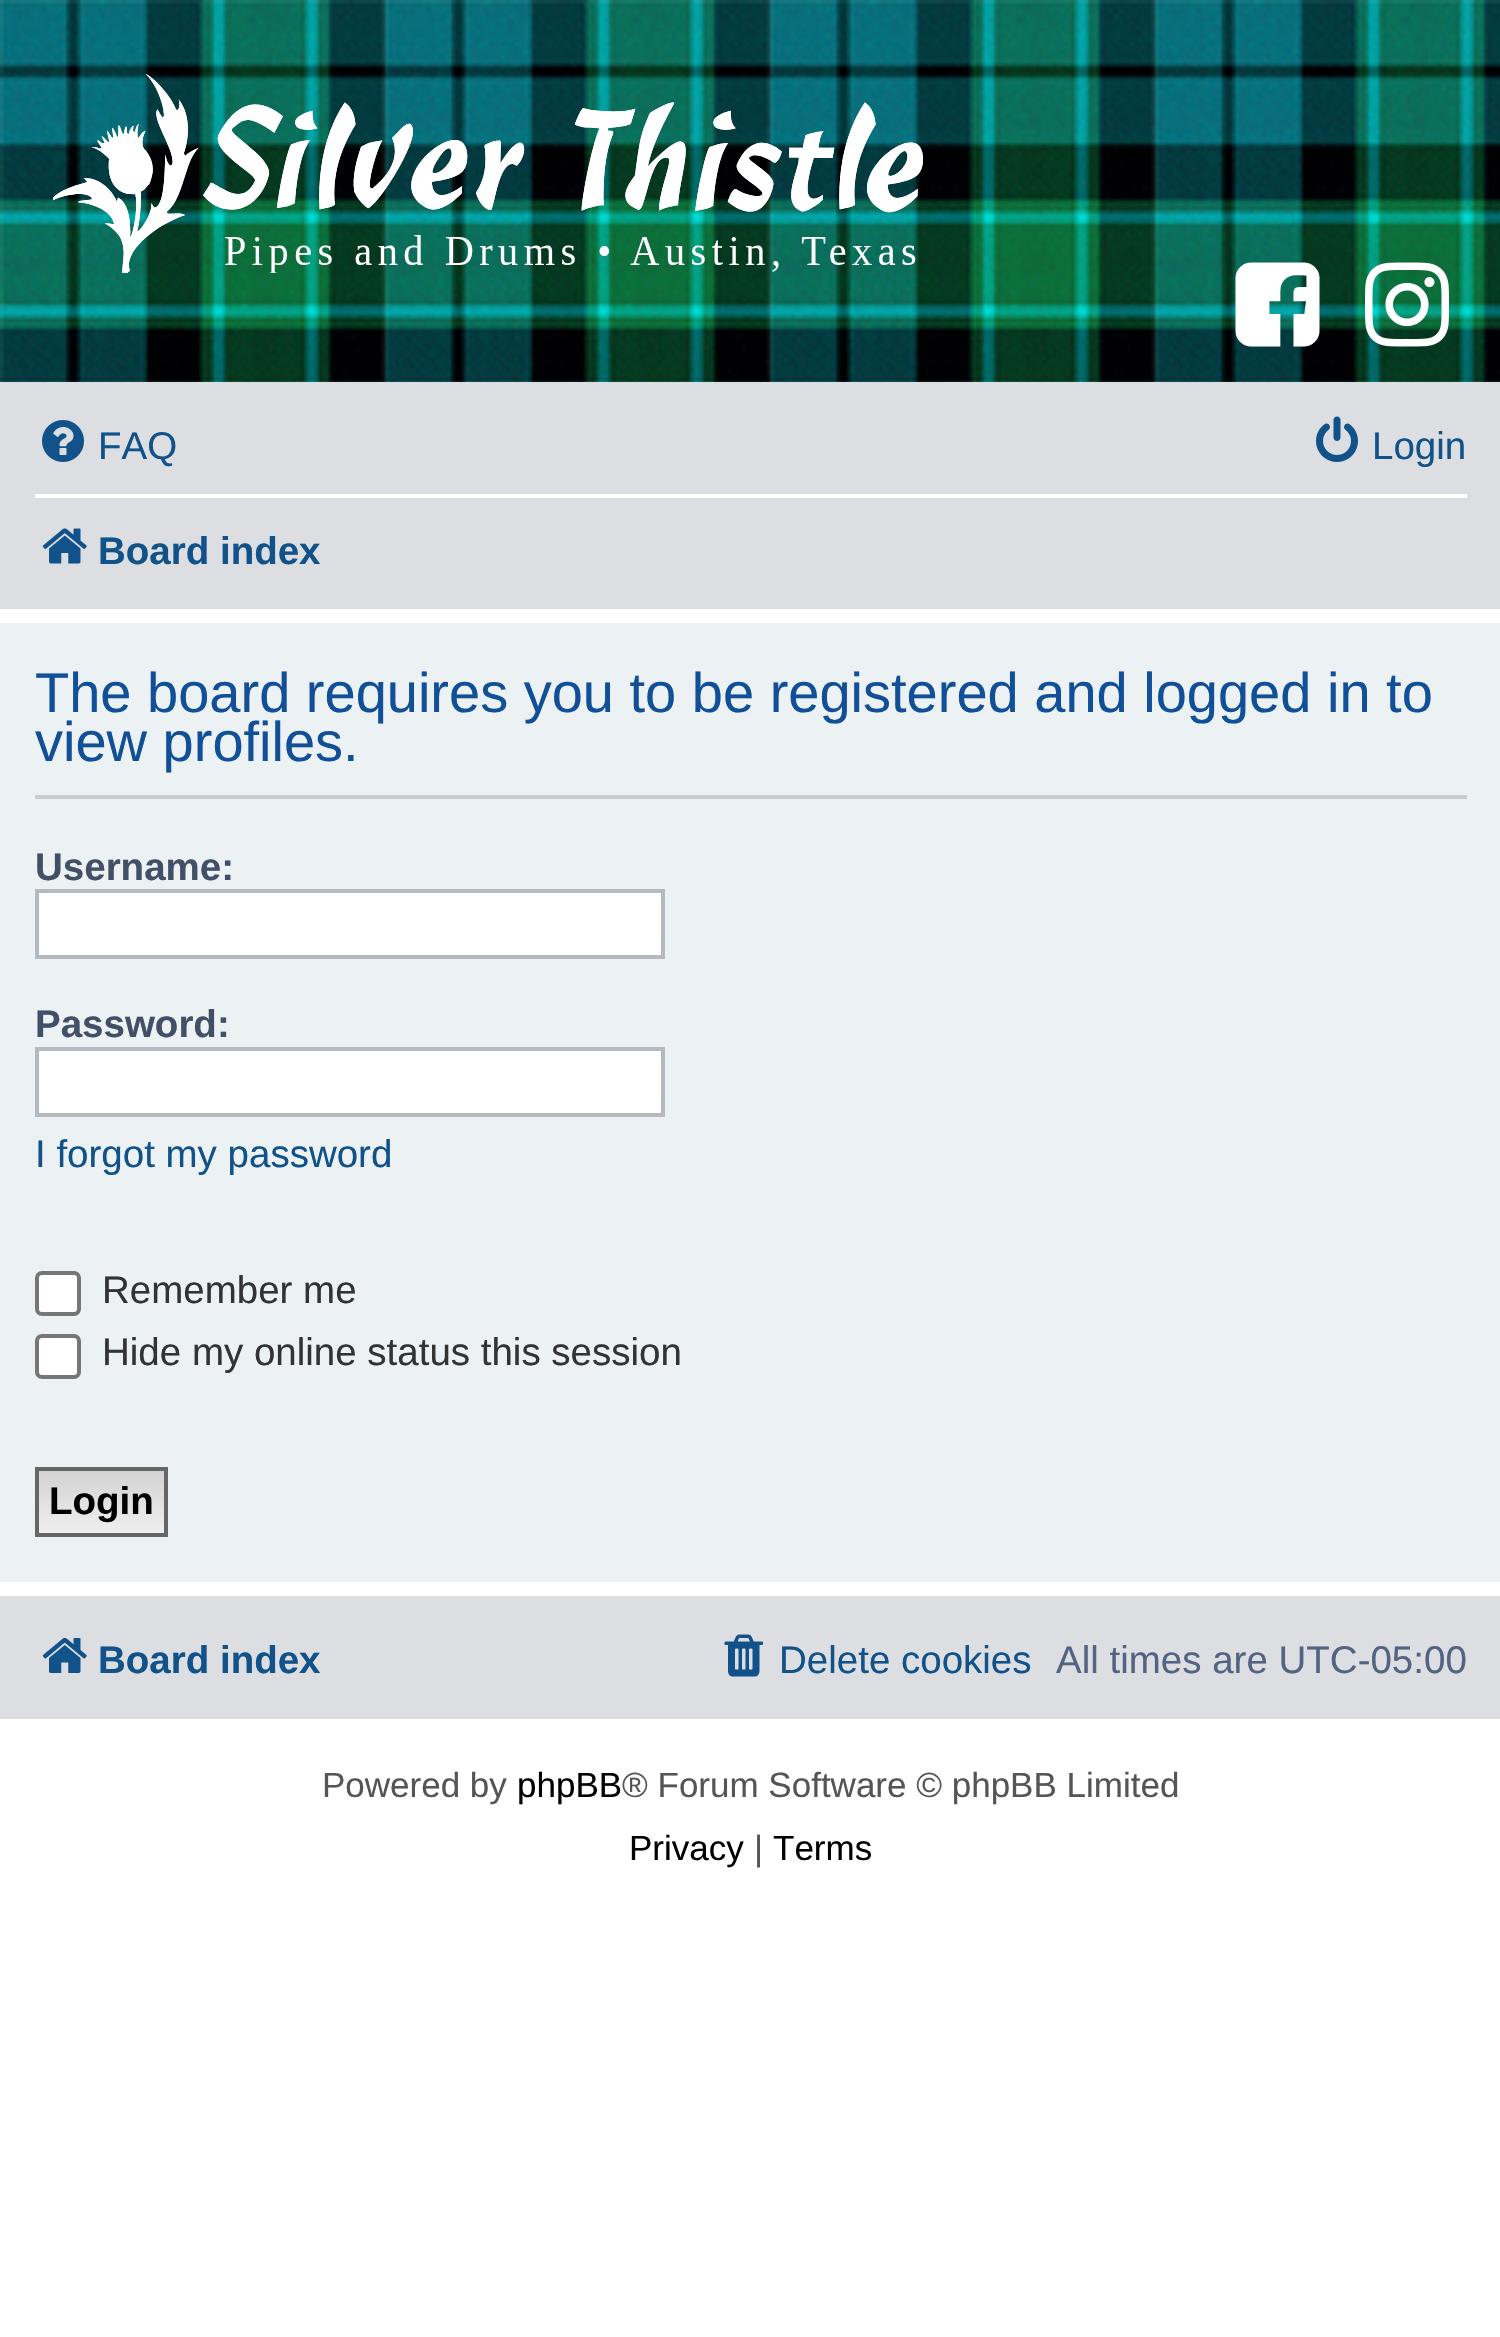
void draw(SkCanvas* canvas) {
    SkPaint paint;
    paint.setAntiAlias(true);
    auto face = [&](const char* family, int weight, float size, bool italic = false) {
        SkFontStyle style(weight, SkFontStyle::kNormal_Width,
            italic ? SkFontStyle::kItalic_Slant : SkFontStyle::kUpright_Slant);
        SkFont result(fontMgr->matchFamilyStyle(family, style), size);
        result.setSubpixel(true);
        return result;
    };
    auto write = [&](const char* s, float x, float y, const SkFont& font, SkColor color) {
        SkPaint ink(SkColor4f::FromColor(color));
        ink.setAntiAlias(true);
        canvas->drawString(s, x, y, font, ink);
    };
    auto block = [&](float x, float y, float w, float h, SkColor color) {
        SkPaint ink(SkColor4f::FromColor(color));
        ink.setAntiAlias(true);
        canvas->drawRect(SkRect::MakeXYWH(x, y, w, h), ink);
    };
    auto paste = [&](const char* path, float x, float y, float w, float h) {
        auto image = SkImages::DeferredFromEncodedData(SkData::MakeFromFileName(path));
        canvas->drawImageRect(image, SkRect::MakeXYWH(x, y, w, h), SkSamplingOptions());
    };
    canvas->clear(SK_ColorWHITE);
    paste("pic1.png", 0, 0, 1500, 382);
    paste("pic2.png", 53, 74, 870, 199);
    paste("pic3.png", 1235, 262, 85, 85);
    paste("pic4.png", 1365, 262, 84, 85);
    block(0, 382, 1500, 227, SkColorSetRGB(220, 222, 226));
    paste("pic5.png", 42, 420, 42, 42);
    auto kFont1 = face("Liberation Sans", 400, 38.5f);
    write("FAQ", 98, 459, kFont1, SkColorSetRGB(16, 82, 137));
    paste("pic6.png", 1316, 416, 42, 46);
    write("Login", 1372, 459, kFont1, SkColorSetRGB(16, 82, 137));
    block(35, 494, 1432, 4, SK_ColorWHITE);
    paste("pic7.png", 42, 528, 45, 36);
    auto kFont2 = face("Liberation Sans", 700, 38.5f);
    write("Board index", 98, 564, kFont2, SkColorSetRGB(16, 82, 137));
    block(0, 623, 1500, 959, SkColorSetRGB(236, 241, 243));
    block(35, 795, 1432, 4, SkColorSetRGB(204, 204, 204));
    auto kFont3 = face("Liberation Sans", 400, 56);
    write("The board requires you to be registered and logged in to", 35, 712, kFont3, SkColorSetRGB(17, 80, 152));
    write("view profiles.", 35, 761, kFont3, SkColorSetRGB(17, 80, 152));
    write("Username:", 35, 880, kFont2, SkColorSetRGB(66, 80, 103));
    paint.setColor(SK_ColorWHITE);
    canvas->drawRect(SkRect::MakeXYWH(37, 891, 626, 66), paint);
    paint.setStyle(SkPaint::kStroke_Style);
    paint.setStrokeWidth(4);
    paint.setColor(SkColorSetRGB(180, 186, 192));
    canvas->drawRect(SkRect::MakeXYWH(37, 891, 626, 66), paint);
    write("Password:", 35, 1037, kFont2, SkColorSetRGB(66, 80, 103));
    paint.setStyle(SkPaint::kFill_Style);
    paint.setColor(SK_ColorWHITE);
    canvas->drawRect(SkRect::MakeXYWH(37, 1049, 626, 66), paint);
    paint.setStyle(SkPaint::kStroke_Style);
    paint.setColor(SkColorSetRGB(180, 186, 192));
    canvas->drawRect(SkRect::MakeXYWH(37, 1049, 626, 66), paint);
    write("I forgot my password", 35, 1167, kFont1, SkColorSetRGB(16, 82, 137));
    paint.setStyle(SkPaint::kFill_Style);
    paint.setColor(SK_ColorWHITE);
    canvas->drawRoundRect(SkRect::MakeXYWH(37, 1273, 42, 41), 5, 5, paint);
    paint.setStyle(SkPaint::kStroke_Style);
    paint.setColor(SkColorSetRGB(118, 118, 118));
    canvas->drawRoundRect(SkRect::MakeXYWH(37, 1273, 42, 41), 5, 5, paint);
    write("Remember me", 102, 1303, kFont1, SkColorSetRGB(51, 51, 51));
    paint.setStyle(SkPaint::kFill_Style);
    paint.setColor(SK_ColorWHITE);
    canvas->drawRoundRect(SkRect::MakeXYWH(37, 1336, 42, 41), 5, 5, paint);
    paint.setStyle(SkPaint::kStroke_Style);
    paint.setColor(SkColorSetRGB(118, 118, 118));
    canvas->drawRoundRect(SkRect::MakeXYWH(37, 1336, 42, 41), 5, 5, paint);
    write("Hide my online status this session", 102, 1365, kFont1, SkColorSetRGB(51, 51, 51));
    paint.setStyle(SkPaint::kFill_Style);
    {
        const SkColor colors[] = {SkColorSetRGB(210, 210, 210), SkColorSetRGB(239, 239, 239)};
        const float stops[] = {0, 1};
        const SkPoint ends[] = {{102, 1470}, {102, 1533}};
        paint.setShader(SkGradientShader::MakeLinear(ends, colors, stops, 2, SkTileMode::kClamp));
        paint.setAlpha(255);
    }
    canvas->drawRect(SkRect::MakeXYWH(39, 1471, 125, 62), paint);
    paint.setStyle(SkPaint::kStroke_Style);
    paint.setShader(nullptr);
    paint.setColor(SkColorSetRGB(102, 102, 102));
    canvas->drawRect(SkRect::MakeXYWH(37, 1469, 129, 66), paint);
    write("Login", 49, 1514, kFont2, SK_ColorBLACK);
    block(0, 1596, 1500, 123, SkColorSetRGB(220, 222, 226));
    paste("pic8.png", 42, 1637, 45, 36);
    write("Board index", 98, 1673, kFont2, SkColorSetRGB(16, 82, 137));
    paste("pic9.png", 724, 1634, 39, 43);
    write("Delete cookies", 779, 1673, kFont1, SkColorSetRGB(16, 82, 137));
    write("All times are UTC-05:00", 1056, 1673, kFont1, SkColorSetRGB(83, 100, 130));
    auto kFont4 = face("Liberation Sans", 400, 35);
    write("Powered by", 322, 1797, kFont4, SkColorSetRGB(85, 85, 85));
    write("phpBB", 517, 1797, kFont4, SK_ColorBLACK);
    write("® Forum Software © phpBB Limited", 622, 1797, kFont4, SkColorSetRGB(85, 85, 85));
    write("Privacy", 629, 1860, kFont4, SK_ColorBLACK);
    write("|", 754, 1860, kFont4, SkColorSetRGB(85, 85, 85));
    write("Terms", 773, 1860, kFont4, SK_ColorBLACK);
}
